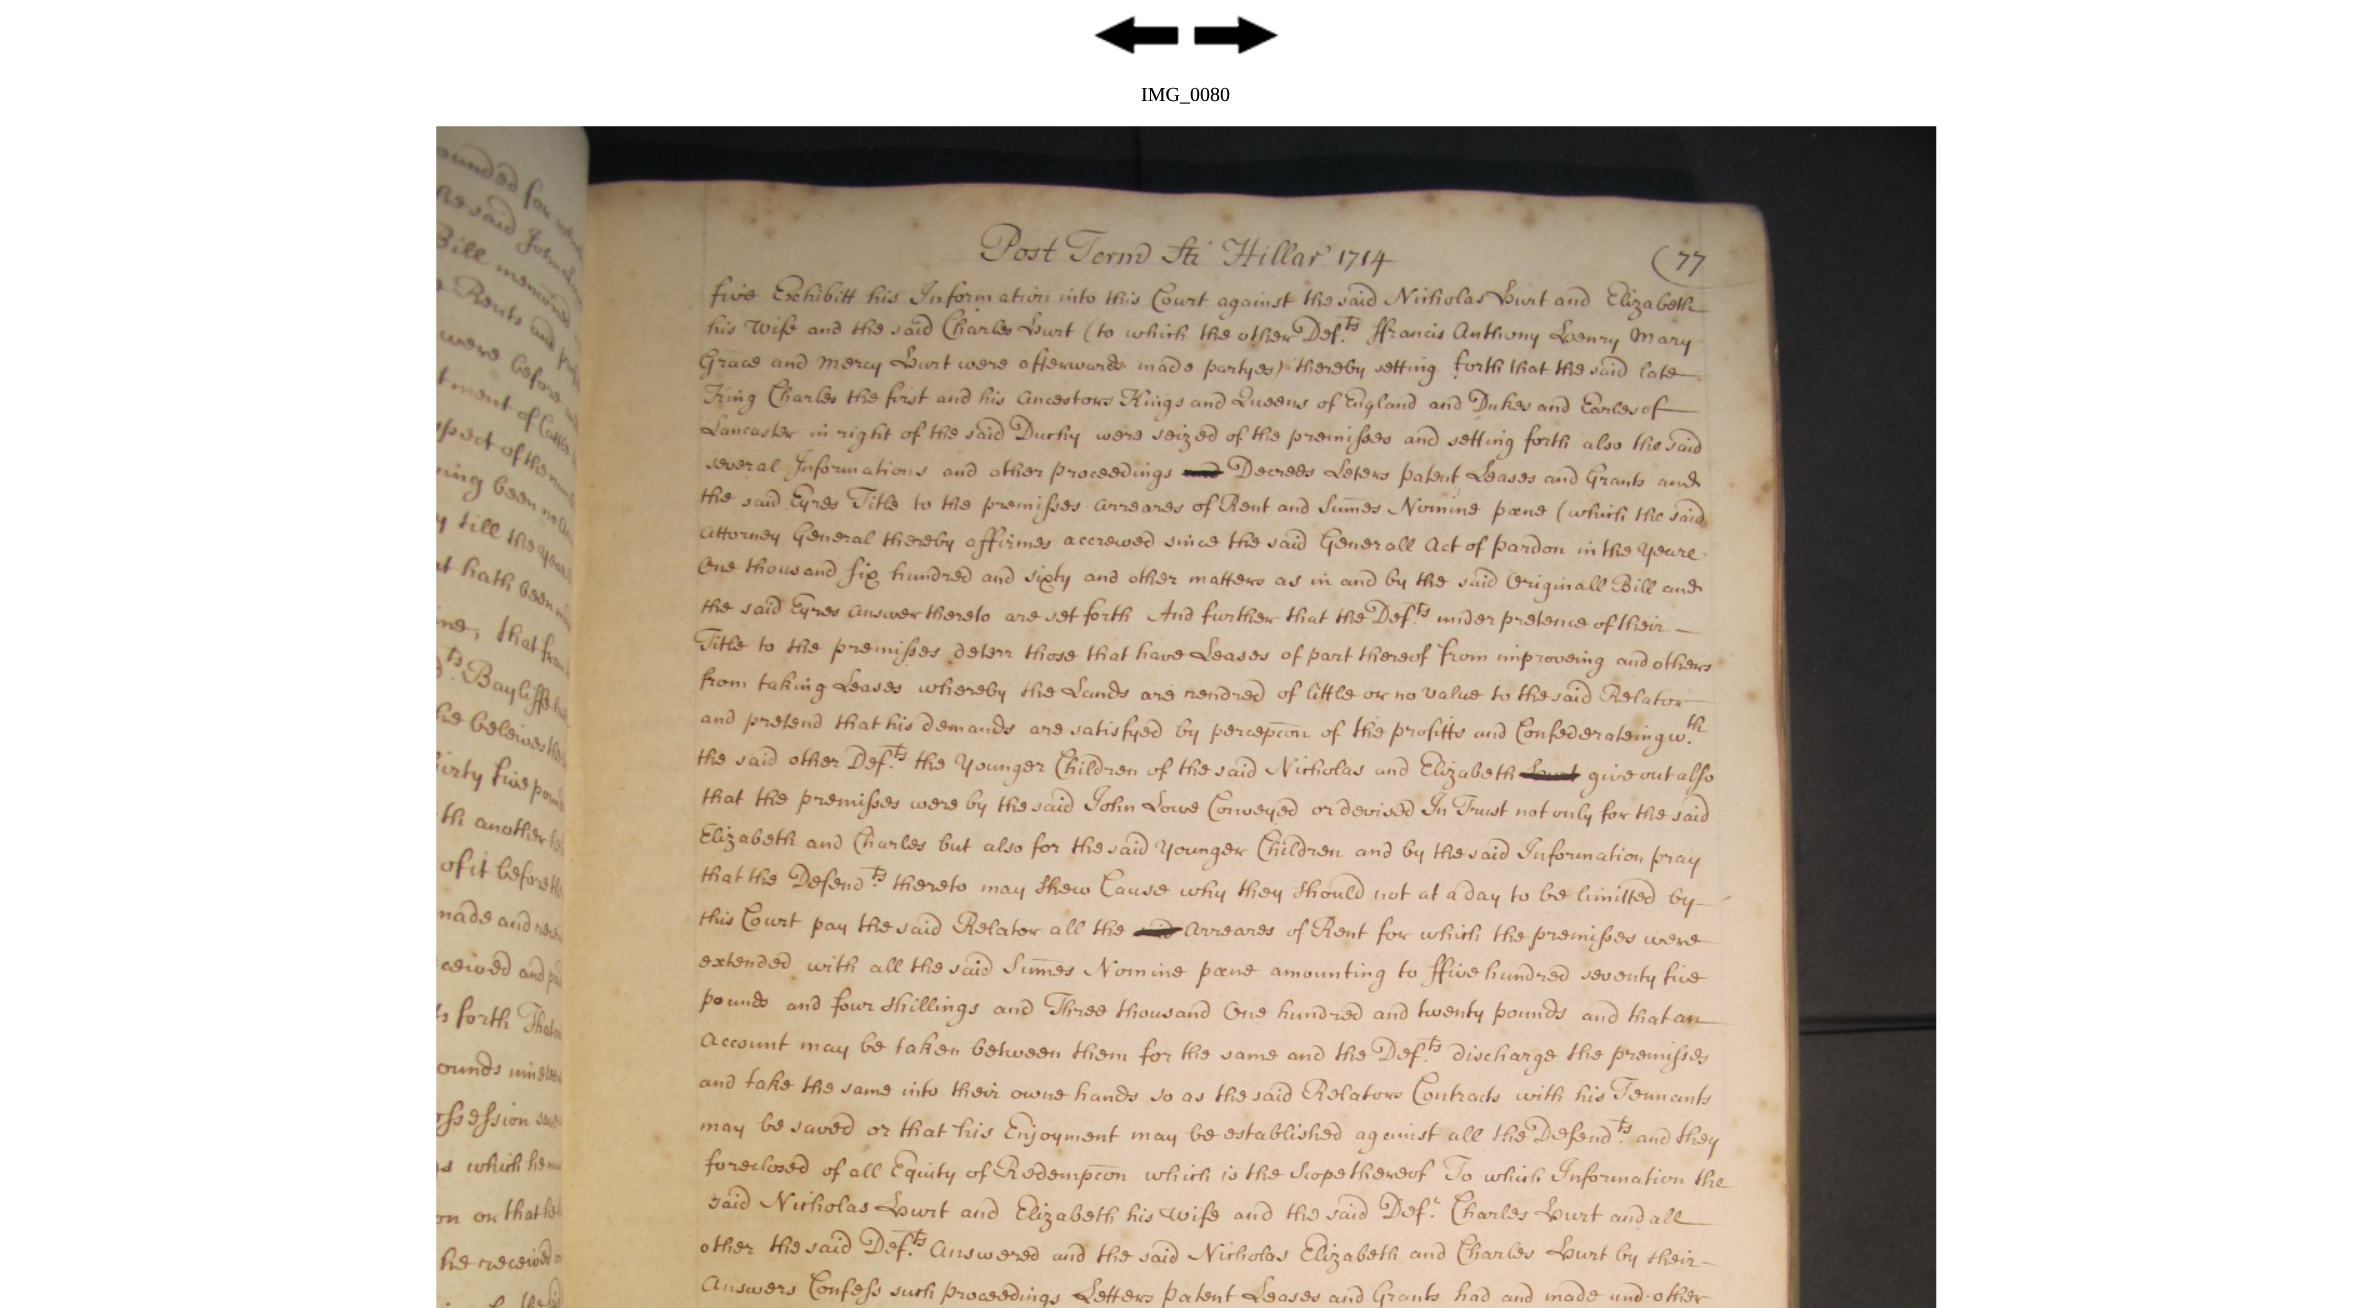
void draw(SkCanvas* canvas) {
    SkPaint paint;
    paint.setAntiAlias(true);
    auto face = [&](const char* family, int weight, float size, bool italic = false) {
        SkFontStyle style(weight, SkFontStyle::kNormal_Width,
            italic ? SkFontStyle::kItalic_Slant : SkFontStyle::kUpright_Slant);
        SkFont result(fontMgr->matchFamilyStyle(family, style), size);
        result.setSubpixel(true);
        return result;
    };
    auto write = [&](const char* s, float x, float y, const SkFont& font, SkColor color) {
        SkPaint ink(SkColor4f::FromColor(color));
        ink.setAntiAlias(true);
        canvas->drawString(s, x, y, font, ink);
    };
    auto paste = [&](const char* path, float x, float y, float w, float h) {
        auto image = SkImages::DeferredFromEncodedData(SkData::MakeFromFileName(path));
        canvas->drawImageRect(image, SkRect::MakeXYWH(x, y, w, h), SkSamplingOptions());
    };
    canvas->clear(SK_ColorWHITE);
    paste("pic1.png", 1093, 15, 86, 39);
    paste("pic2.png", 1193, 15, 87, 39);
    auto kFont1 = face("Liberation Serif", 400, 20);
    write("IMG_0080", 1141, 101, kFont1, SK_ColorBLACK);
    paste("pic3.png", 436, 126, 1501, 1182);
}
